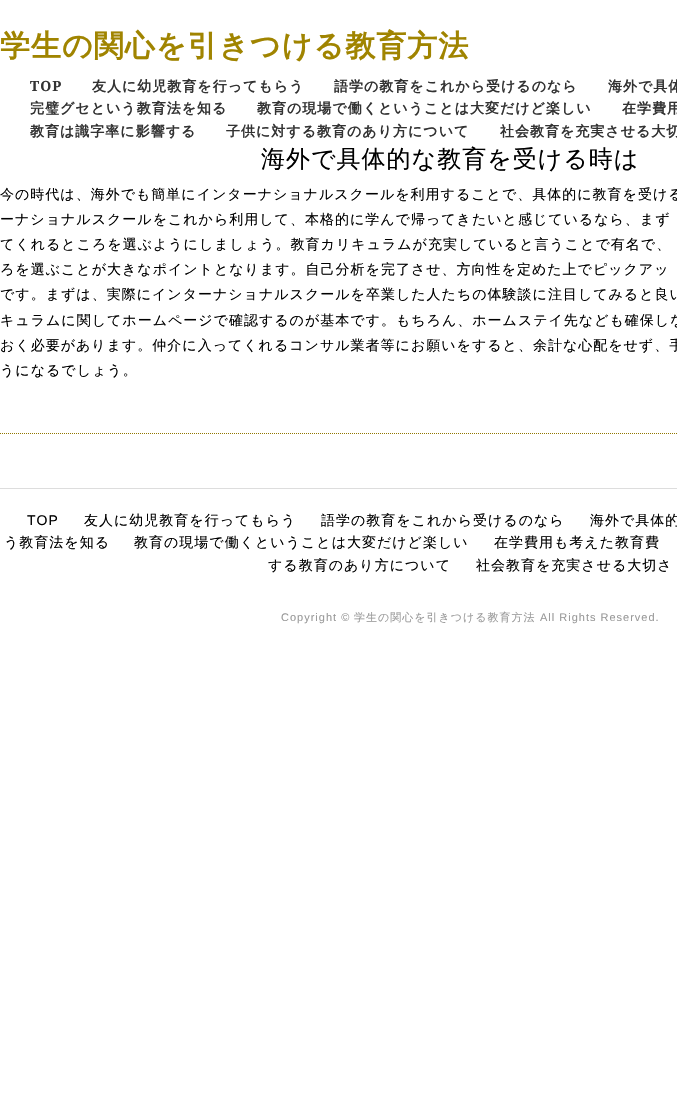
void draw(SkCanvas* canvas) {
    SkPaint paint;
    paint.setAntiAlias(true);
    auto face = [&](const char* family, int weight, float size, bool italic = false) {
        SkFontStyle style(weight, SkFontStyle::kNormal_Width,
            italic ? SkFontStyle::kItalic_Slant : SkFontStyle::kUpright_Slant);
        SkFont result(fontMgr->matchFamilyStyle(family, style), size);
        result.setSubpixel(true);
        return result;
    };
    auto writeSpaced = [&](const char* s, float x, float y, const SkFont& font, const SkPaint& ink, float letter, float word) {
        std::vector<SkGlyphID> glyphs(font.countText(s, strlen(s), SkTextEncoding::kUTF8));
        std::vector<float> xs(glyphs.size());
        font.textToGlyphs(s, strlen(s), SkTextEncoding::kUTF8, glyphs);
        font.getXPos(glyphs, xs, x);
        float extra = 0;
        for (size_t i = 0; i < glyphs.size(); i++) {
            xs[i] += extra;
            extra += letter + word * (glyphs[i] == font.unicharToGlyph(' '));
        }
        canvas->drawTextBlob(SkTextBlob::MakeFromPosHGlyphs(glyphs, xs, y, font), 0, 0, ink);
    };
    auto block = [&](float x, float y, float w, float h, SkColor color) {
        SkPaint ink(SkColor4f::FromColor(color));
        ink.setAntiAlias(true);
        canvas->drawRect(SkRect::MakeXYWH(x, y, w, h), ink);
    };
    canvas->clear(SK_ColorWHITE);
    auto kFont1 = face("WenQuanYi Zen Hei", 700, 30);
    paint.setColor(SkColorSetRGB(160, 132, 0));
    writeSpaced("学生の関心を引きつける教育方法", 0, 56, kFont1, paint, 1, 0);
    auto kFont2 = face("Noto Serif", 700, 14);
    paint.setColor(SkColorSetRGB(51, 51, 51));
    writeSpaced("TOP", 30, 91, kFont2, paint, 1, 0);
    auto kFont3 = face("WenQuanYi Zen Hei", 700, 14);
    writeSpaced("友人に幼児教育を行ってもらう", 92, 91, kFont3, paint, 1, 0);
    writeSpaced("語学の教育をこれから受けるのなら", 334, 91, kFont3, paint, 1, 0);
    writeSpaced("海外で具体", 608, 91, kFont3, paint, 1, 0);
    writeSpaced("完璧グセという教育法を知る", 30, 113, kFont3, paint, 1, 0);
    writeSpaced("教育の現場で働くということは大変だけど楽しい", 257, 113, kFont3, paint, 1, 0);
    writeSpaced("在学費用", 622, 113, kFont3, paint, 1, 0);
    writeSpaced("教育は識字率に影響する", 30, 136, kFont3, paint, 1, 0);
    writeSpaced("子供に対する教育のあり方について", 226, 136, kFont3, paint, 1, 0);
    writeSpaced("社会教育を充実させる大切", 500, 136, kFont3, paint, 1, 0);
    auto kFont4 = face("WenQuanYi Zen Hei", 500, 24);
    paint.setColor(SK_ColorBLACK);
    writeSpaced("海外で具体的な教育を受ける時は", 261, 167, kFont4, paint, 1, 0);
    auto kFont5 = face("WenQuanYi Zen Hei", 500, 14);
    writeSpaced("今の時代は、海外でも簡単にインターナショナルスクールを利用することで、具体的に教育を受ける", 0, 199, kFont5, paint, 1, 0);
    writeSpaced("ーナショナルスクールをこれから利用して、本格的に学んで帰ってきたいと感じているなら、まず", 0, 224, kFont5, paint, 1, 0);
    writeSpaced("てくれるところを選ぶようにしましょう。教育カリキュラムが充実していると言うことで有名で、", 0, 249, kFont5, paint, 1, 0);
    writeSpaced("ろを選ぶことが大きなポイントとなります。自己分析を完了させ、方向性を定めた上でピックアッ", 0, 274, kFont5, paint, 1, 0);
    writeSpaced("です。まずは、実際にインターナショナルスクールを卒業した人たちの体験談に注目してみると良い", 0, 299, kFont5, paint, 1, 0);
    writeSpaced("キュラムに関してホームページで確認するのが基本です。もちろん、ホームステイ先なども確保しな", 0, 325, kFont5, paint, 1, 0);
    writeSpaced("おく必要があります。仲介に入ってくれるコンサル業者等にお願いをすると、余計な心配をせず、手", 0, 350, kFont5, paint, 1, 0);
    writeSpaced("うになるでしょう。", 0, 375, kFont5, paint, 1, 0);
    paint.setStyle(SkPaint::kStroke_Style);
    paint.setStrokeWidth(1);
    paint.setColor(SkColorSetRGB(145, 119, 0));
    paint.setPathEffect(SkDashPathEffect::Make({{1, 1}}, 0));
    canvas->drawPath(SkPathBuilder().moveTo(0, 433.5f).lineTo(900, 433.5f).detach(), paint);
    paint.setPathEffect(nullptr);
    block(0, 488, 677, 1, SkColorSetRGB(221, 221, 221));
    auto kFont6 = face("Liberation Sans", 400, 14);
    paint.setStyle(SkPaint::kFill_Style);
    paint.setColor(SK_ColorBLACK);
    writeSpaced("TOP", 27, 525, kFont6, paint, 1, 0);
    writeSpaced("友人に幼児教育を行ってもらう", 84, 525, kFont5, paint, 1, 0);
    writeSpaced("語学の教育をこれから受けるのなら", 321, 525, kFont5, paint, 1, 0);
    writeSpaced("海外で具体的", 590, 525, kFont5, paint, 1, 0);
    writeSpaced("う教育法を知る", 4, 547, kFont5, paint, 1, 0);
    writeSpaced("教育の現場で働くということは大変だけど楽しい", 134, 547, kFont5, paint, 1, 0);
    writeSpaced("在学費用も考えた教育費", 494, 547, kFont5, paint, 1, 0);
    writeSpaced("する教育のあり方について", 268, 570, kFont5, paint, 1, 0);
    writeSpaced("社会教育を充実させる大切さ", 476, 570, kFont5, paint, 1, 0);
    auto kFont7 = face("Liberation Sans", 400, 11);
    paint.setColor(SkColorSetRGB(153, 153, 153));
    writeSpaced("Copyright ©", 281, 621, kFont7, paint, 1, 0);
    auto kFont8 = face("WenQuanYi Zen Hei", 500, 11);
    writeSpaced("学生の関心を引きつける教育方法", 354, 621, kFont8, paint, 1, 0);
    writeSpaced("All Rights Reserved.", 540, 621, kFont7, paint, 1, 0);
}
